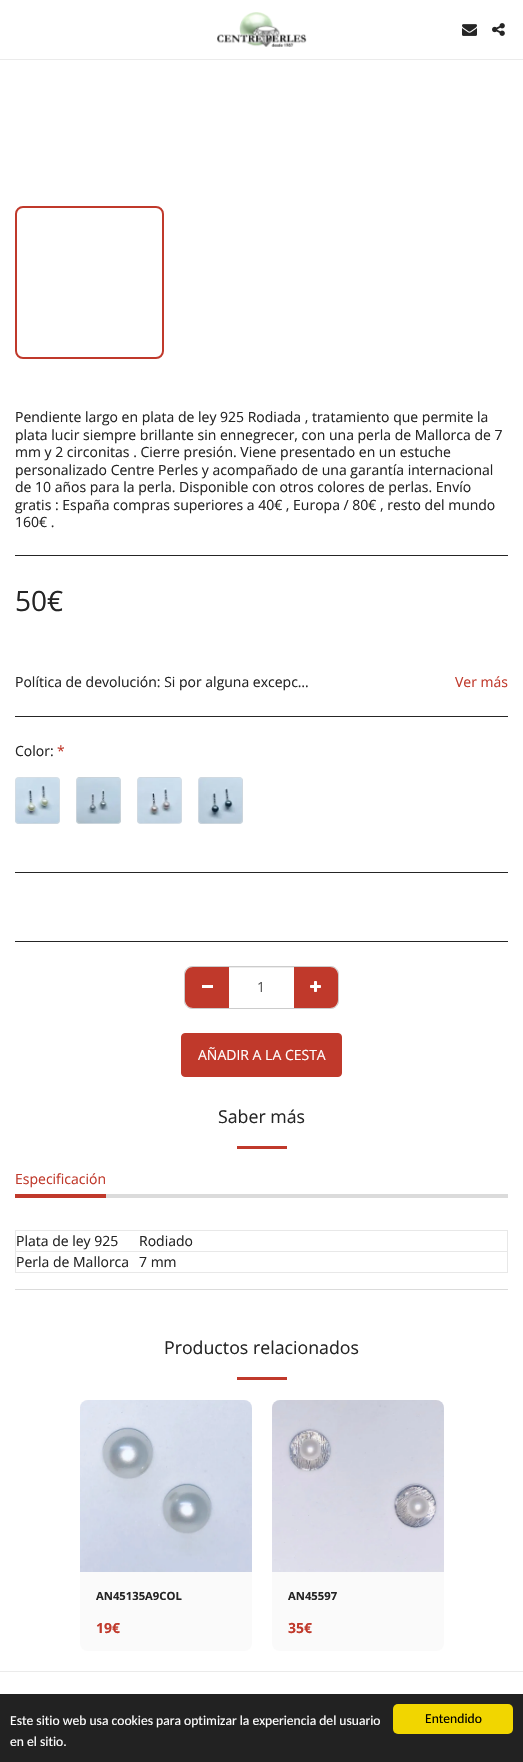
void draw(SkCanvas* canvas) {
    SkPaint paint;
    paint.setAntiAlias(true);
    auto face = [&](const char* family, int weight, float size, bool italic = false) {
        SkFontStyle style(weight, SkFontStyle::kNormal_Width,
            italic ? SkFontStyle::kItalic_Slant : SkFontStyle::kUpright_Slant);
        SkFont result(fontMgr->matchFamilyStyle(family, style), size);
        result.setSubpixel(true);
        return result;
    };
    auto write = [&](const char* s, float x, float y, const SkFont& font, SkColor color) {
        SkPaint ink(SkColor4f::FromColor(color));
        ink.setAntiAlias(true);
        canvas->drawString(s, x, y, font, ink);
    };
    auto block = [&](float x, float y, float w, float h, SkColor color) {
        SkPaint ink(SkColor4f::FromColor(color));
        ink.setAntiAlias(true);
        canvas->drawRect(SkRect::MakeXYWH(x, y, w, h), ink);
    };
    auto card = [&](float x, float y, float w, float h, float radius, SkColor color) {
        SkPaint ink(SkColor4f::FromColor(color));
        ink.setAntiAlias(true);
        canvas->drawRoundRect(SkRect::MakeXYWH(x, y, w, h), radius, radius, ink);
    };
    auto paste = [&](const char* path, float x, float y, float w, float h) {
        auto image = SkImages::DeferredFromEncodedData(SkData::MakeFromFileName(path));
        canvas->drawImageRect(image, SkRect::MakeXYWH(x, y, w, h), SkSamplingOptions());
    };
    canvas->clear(SK_ColorWHITE);
    block(0, 59, 523, 1, SkColorSetRGB(235, 235, 235));
    paste("pic1.png", 217, 12, 90, 35);
    paste("pic2.png", 462, 24, 15, 12);
    paste("pic3.png", 492, 23, 13, 13);
    paint.setStyle(SkPaint::kStroke_Style);
    paint.setStrokeWidth(2);
    paint.setColor(SkColorSetRGB(192, 57, 43));
    canvas->drawRoundRect(SkRect::MakeXYWH(16, 207, 147, 151), 7, 7, paint);
    auto kFont1 = face("Open Sans", 400, 14);
    write("Pendiente largo en plata de ley 925 Rodiada , tratamiento que permite la", 15, 422, kFont1, SkColorSetRGB(37, 37, 37));
    write("plata lucir siempre brillante sin ennegrecer, con una perla de Mallorca de 7", 15, 440, kFont1, SkColorSetRGB(37, 37, 37));
    write("mm y 2 circonitas . Cierre presión. Viene presentado en un estuche", 15, 457, kFont1, SkColorSetRGB(37, 37, 37));
    write("personalizado Centre Perles y acompañado de una garantía internacional", 15, 475, kFont1, SkColorSetRGB(37, 37, 37));
    write("de 10 años para la perla. Disponible con otros colores de perlas. Envío", 15, 492, kFont1, SkColorSetRGB(37, 37, 37));
    write("gratis : España compras superiores a 40€ , Europa / 80€ , resto del mundo", 15, 510, kFont1, SkColorSetRGB(37, 37, 37));
    write("160€ .", 15, 527, kFont1, SkColorSetRGB(37, 37, 37));
    block(15, 555, 493, 1, SkColorSetRGB(37, 37, 37));
    auto kFont2 = face("Open Sans", 400, 28);
    write("50€", 15, 611, kFont2, SkColorSetRGB(37, 37, 37));
    write("Política de devolución: Si por alguna excepc…", 15, 687, kFont1, SkColorSetRGB(37, 37, 37));
    write("Ver más", 455, 687, kFont1, SkColorSetRGB(192, 57, 43));
    block(15, 716, 493, 1, SkColorSetRGB(37, 37, 37));
    write("Color:", 15, 756, kFont1, SkColorSetRGB(37, 37, 37));
    write("*", 57, 756, kFont1, SkColorSetRGB(192, 57, 43));
    paste("pic4.png", 15, 777, 45, 47);
    paint.setStrokeWidth(1);
    paint.setColor(SkColorSetARGB(128, 221, 221, 221));
    canvas->drawRoundRect(SkRect::MakeXYWH(15.5f, 777.5f, 44, 46), 3.5f, 3.5f, paint);
    paste("pic5.png", 76, 777, 45, 47);
    canvas->drawRoundRect(SkRect::MakeXYWH(76.5f, 777.5f, 44, 46), 3.5f, 3.5f, paint);
    paste("pic6.png", 137, 777, 45, 47);
    canvas->drawRoundRect(SkRect::MakeXYWH(137.5f, 777.5f, 44, 46), 3.5f, 3.5f, paint);
    paste("pic7.png", 198, 777, 45, 47);
    canvas->drawRoundRect(SkRect::MakeXYWH(198.5f, 777.5f, 44, 46), 3.5f, 3.5f, paint);
    block(15, 872, 493, 1, SkColorSetRGB(37, 37, 37));
    block(15, 941, 493, 1, SkColorSetRGB(37, 37, 37));
    paint.setColor(SkColorSetRGB(204, 204, 204));
    canvas->drawRoundRect(SkRect::MakeXYWH(184.5f, 966.5f, 154, 42), 7.5f, 7.5f, paint);
    paint.setStyle(SkPaint::kFill_Style);
    paint.setColor(SkColorSetRGB(192, 57, 43));
    canvas->drawPath(SkPathBuilder().moveTo(193, 967).lineTo(230, 967).lineTo(230, 1008).lineTo(193, 1008).cubicTo(188.5f, 1008, 185, 1004.5f, 185, 1000).lineTo(185, 975).cubicTo(185, 970.5f, 188.5f, 967, 193, 967).close().detach(), paint);
    block(202, 985, 11, 3, SK_ColorWHITE);
    canvas->drawPath(SkPathBuilder().moveTo(293, 967).lineTo(330, 967).cubicTo(334.5f, 967, 338, 970.5f, 338, 975).lineTo(338, 1000).cubicTo(338, 1004.5f, 334.5f, 1008, 330, 1008).lineTo(293, 1008).close().detach(), paint);
    block(229, 968, 65, 40, SK_ColorWHITE);
    block(229, 967, 65, 1, SkColorSetRGB(236, 236, 236));
    write("1", 257, 992, kFont1, SkColorSetRGB(85, 85, 85));
    paste("pic8.png", 310, 981, 11, 11);
    canvas->drawRoundRect(SkRect::MakeXYWH(181.5f, 1033.5f, 160, 43), 3.5f, 3.5f, paint);
    paint.setStyle(SkPaint::kStroke_Style);
    canvas->drawRoundRect(SkRect::MakeXYWH(181.5f, 1033.5f, 160, 43), 3.5f, 3.5f, paint);
    write("AÑADIR A LA CESTA", 198, 1060, kFont1, SK_ColorWHITE);
    auto kFont3 = face("Open Sans", 400, 17.75f);
    write("Saber más", 218, 1123, kFont3, SkColorSetRGB(37, 37, 37));
    block(237, 1146, 50, 3, SkColorSetRGB(192, 57, 43));
    block(106, 1194, 402, 4, SkColorSetRGB(219, 219, 219));
    block(15, 1194, 91, 4, SkColorSetRGB(192, 57, 43));
    write("Especificación", 15, 1184, kFont1, SkColorSetRGB(192, 57, 43));
    block(15, 1289, 493, 1, SkColorSetRGB(219, 219, 219));
    block(15, 1230, 493, 1, SkColorSetRGB(232, 232, 232));
    block(507, 1231, 1, 42, SkColorSetRGB(232, 232, 232));
    block(15, 1251, 493, 1, SkColorSetRGB(232, 232, 232));
    block(15, 1231, 1, 21, SkColorSetRGB(232, 232, 232));
    write("Plata de ley 925", 16, 1246, kFont1, SkColorSetRGB(37, 37, 37));
    write("Rodiado", 139, 1246, kFont1, SkColorSetRGB(37, 37, 37));
    block(15, 1272, 493, 1, SkColorSetRGB(232, 232, 232));
    block(15, 1252, 1, 21, SkColorSetRGB(232, 232, 232));
    write("Perla de Mallorca", 16, 1267, kFont1, SkColorSetRGB(37, 37, 37));
    write("7 mm", 139, 1267, kFont1, SkColorSetRGB(37, 37, 37));
    write("Productos relacionados", 164, 1354, kFont3, SkColorSetRGB(37, 37, 37));
    block(237, 1377, 50, 3, SkColorSetRGB(192, 57, 43));
    card(80, 1400, 172, 251, 8, SkColorSetRGB(250, 250, 250));
    paste("pic9.png", 80, 1400, 172, 172);
    auto kFont4 = face("Open Sans", 700, 11.25f);
    write("AN45135A9COL", 96, 1600, kFont4, SkColorSetRGB(37, 37, 37));
    auto kFont5 = face("Open Sans", 700, 14);
    write("19€", 96, 1633, kFont5, SkColorSetRGB(192, 57, 43));
    card(272, 1400, 172, 251, 8, SkColorSetRGB(250, 250, 250));
    paste("pic10.png", 272, 1400, 172, 172);
    write("AN45597", 288, 1600, kFont4, SkColorSetRGB(37, 37, 37));
    write("35€", 288, 1633, kFont5, SkColorSetRGB(192, 57, 43));
    block(0, 1671, 523, 1, SkColorSetRGB(235, 235, 235));
    block(0, 1694, 523, 68, SkColorSetRGB(34, 34, 34));
    auto kFont6 = face("Carlito", 400, 13.6f);
    write("Este sitio web usa cookies para optimizar la experiencia del usuario", 10, 1725, kFont6, SK_ColorWHITE);
    write("en el sitio.", 10, 1746, kFont6, SK_ColorWHITE);
    card(393, 1704, 120, 30, 5, SkColorSetRGB(241, 214, 0));
    write("Entendido", 425, 1723, kFont6, SK_ColorBLACK);
}
